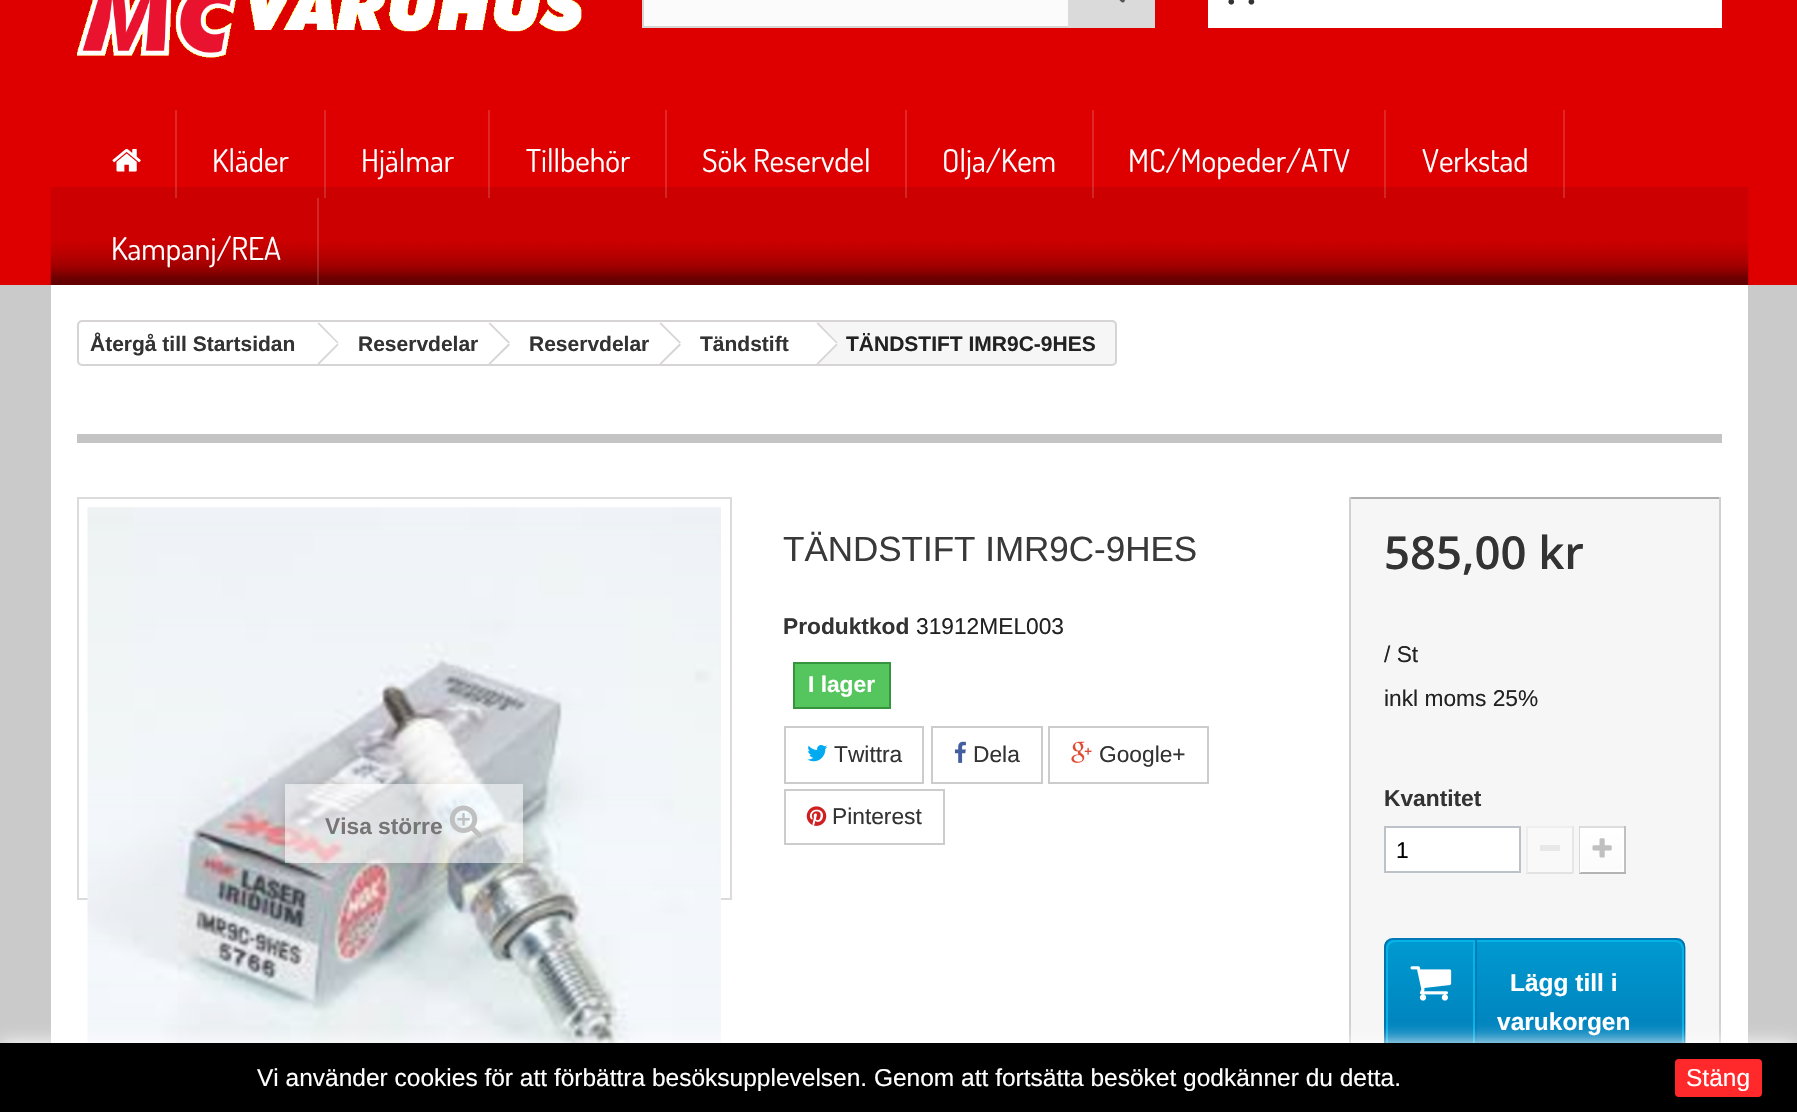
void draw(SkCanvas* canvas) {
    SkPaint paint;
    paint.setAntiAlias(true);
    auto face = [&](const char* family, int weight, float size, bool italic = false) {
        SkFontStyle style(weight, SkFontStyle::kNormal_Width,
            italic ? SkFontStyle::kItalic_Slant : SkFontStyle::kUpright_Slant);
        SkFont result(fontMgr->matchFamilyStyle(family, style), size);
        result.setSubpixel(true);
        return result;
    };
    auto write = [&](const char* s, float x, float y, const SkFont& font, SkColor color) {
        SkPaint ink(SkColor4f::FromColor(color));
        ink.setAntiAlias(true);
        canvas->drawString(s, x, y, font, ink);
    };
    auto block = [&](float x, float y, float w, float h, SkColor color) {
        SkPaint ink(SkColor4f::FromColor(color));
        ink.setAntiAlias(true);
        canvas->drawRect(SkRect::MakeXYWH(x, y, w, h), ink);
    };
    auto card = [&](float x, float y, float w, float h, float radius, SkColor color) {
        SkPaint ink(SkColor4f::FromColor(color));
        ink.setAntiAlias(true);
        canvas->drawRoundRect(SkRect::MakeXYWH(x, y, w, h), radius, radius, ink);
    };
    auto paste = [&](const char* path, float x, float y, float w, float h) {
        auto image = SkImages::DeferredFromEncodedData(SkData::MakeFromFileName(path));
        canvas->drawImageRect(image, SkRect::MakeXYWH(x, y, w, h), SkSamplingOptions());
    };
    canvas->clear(SkColorSetRGB(202, 202, 202));
    block(0, 0, 1797, 285, SkColorSetRGB(222, 0, 0));
    paste("pic1.png", 77, 0, 505, 58);
    block(644, 0, 424, 26, SkColorSetRGB(251, 251, 251));
    paint.setStyle(SkPaint::kStroke_Style);
    paint.setStrokeWidth(2);
    paint.setColor(SkColorSetRGB(214, 212, 212));
    canvas->drawRect(SkRect::MakeXYWH(643, -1, 511, 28), paint);
    block(1068, 0, 87, 28, SkColorSetRGB(218, 218, 218));
    paste("pic2.png", 1119, 0, 6, 3);
    block(1208, 0, 514, 28, SK_ColorWHITE);
    paste("pic3.png", 1228, 0, 27, 5);
    paste("pic4.png", 50, 187, 1699, 98);
    block(175, 110, 2, 88, SkColorSetARGB(38, 255, 255, 255));
    paste("pic5.png", 112, 149, 29, 23);
    block(324, 110, 2, 88, SkColorSetARGB(38, 255, 255, 255));
    auto kFont1 = face("Dosis", 400, 31.5f);
    write("Kläder", 212, 172, kFont1, SK_ColorWHITE);
    block(488, 110, 2, 88, SkColorSetARGB(38, 255, 255, 255));
    write("Hjälmar", 361, 172, kFont1, SK_ColorWHITE);
    block(665, 110, 2, 88, SkColorSetARGB(38, 255, 255, 255));
    write("Tillbehör", 526, 172, kFont1, SK_ColorWHITE);
    block(905, 110, 2, 88, SkColorSetARGB(38, 255, 255, 255));
    write("Sök Reservdel", 702, 172, kFont1, SK_ColorWHITE);
    block(1092, 110, 2, 88, SkColorSetARGB(38, 255, 255, 255));
    write("Olja/Kem", 942, 172, kFont1, SK_ColorWHITE);
    block(1384, 110, 2, 88, SkColorSetARGB(38, 255, 255, 255));
    write("MC/Mopeder/ATV", 1128, 172, kFont1, SK_ColorWHITE);
    block(1563, 110, 2, 88, SkColorSetARGB(38, 255, 255, 255));
    write("Verkstad", 1422, 172, kFont1, SK_ColorWHITE);
    block(317, 198, 2, 87, SkColorSetARGB(38, 255, 255, 255));
    write("Kampanj/REA", 111, 260, kFont1, SK_ColorWHITE);
    block(51, 285, 1697, 758, SK_ColorWHITE);
    paint.setStyle(SkPaint::kFill_Style);
    paint.setColor(SkColorSetRGB(246, 246, 246));
    canvas->drawRoundRect(SkRect::MakeXYWH(78, 321, 1038, 44), 4, 4, paint);
    paint.setStyle(SkPaint::kStroke_Style);
    paint.setColor(SkColorSetRGB(214, 212, 212));
    canvas->drawRoundRect(SkRect::MakeXYWH(78, 321, 1038, 44), 4, 4, paint);
    paint.setStyle(SkPaint::kFill_Style);
    paint.setColor(SK_ColorWHITE);
    canvas->drawPath(SkPathBuilder().moveTo(83, 322).lineTo(322, 322).lineTo(322, 364).lineTo(83, 364).cubicTo(81, 364, 79, 362, 79, 360).lineTo(79, 326).cubicTo(79, 324, 81, 322, 83, 322).close().detach(), paint);
    auto kFont2 = face("Liberation Sans", 700, 21);
    write("Återgå till Startsidan", 90, 351, kFont2, SkColorSetRGB(51, 51, 51));
    canvas->drawPath(SkPathBuilder().moveTo(326, 324).lineTo(340, 338).cubicTo(347, 345, 345, 344, 337, 352).lineTo(325, 364).lineTo(322, 364).lineTo(304, 346).cubicTo(302, 345, 302, 342, 304, 341).lineTo(321, 324).cubicTo(322, 322, 325, 322, 326, 324).close().detach(), paint);
    block(322, 322, 168, 42, SK_ColorWHITE);
    paint.setColor(SkColorSetRGB(214, 212, 212));
    canvas->drawPath(SkPathBuilder().moveTo(319, 322.5f).lineTo(338.5f, 342.5f).lineTo(337.5f, 343.5f).lineTo(317.5f, 323.5f).close().detach(), paint);
    canvas->drawPath(SkPathBuilder().moveTo(337.5f, 343.5f).lineTo(338.5f, 345).lineTo(319.5f, 364).lineTo(318, 364).lineTo(317.5f, 363.5f).close().detach(), paint);
    write("Reservdelar", 358, 351, kFont2, SkColorSetRGB(51, 51, 51));
    paint.setColor(SK_ColorWHITE);
    canvas->drawPath(SkPathBuilder().moveTo(509, 324).lineTo(523, 338).cubicTo(530, 345, 526, 346, 520, 352).lineTo(508, 364).lineTo(505, 364).lineTo(486, 346).cubicTo(485, 345, 485, 342, 486, 341).lineTo(504, 324).cubicTo(505, 322, 507, 322, 509, 324).close().detach(), paint);
    block(490, 322, 172, 42, SK_ColorWHITE);
    paint.setColor(SkColorSetRGB(214, 212, 212));
    canvas->drawPath(SkPathBuilder().moveTo(490, 322.5f).lineTo(510, 342.5f).lineTo(508.5f, 343.5f).lineTo(488.5f, 323.5f).close().detach(), paint);
    canvas->drawPath(SkPathBuilder().moveTo(508.5f, 343.5f).lineTo(510, 345).lineTo(490.5f, 364).lineTo(489, 364).lineTo(488.5f, 363.5f).close().detach(), paint);
    write("Reservdelar", 529, 351, kFont2, SkColorSetRGB(51, 51, 51));
    paint.setColor(SK_ColorWHITE);
    canvas->drawPath(SkPathBuilder().moveTo(680, 324).lineTo(694, 338).cubicTo(701, 345, 697, 346, 691, 352).lineTo(679, 364).lineTo(676, 364).lineTo(657, 346).cubicTo(656, 345, 656, 342, 657, 341).lineTo(675, 324).cubicTo(676, 322, 678, 322, 680, 324).close().detach(), paint);
    block(662, 322, 154, 42, SK_ColorWHITE);
    paint.setColor(SkColorSetRGB(214, 212, 212));
    canvas->drawPath(SkPathBuilder().moveTo(661, 322.5f).lineTo(681, 342.5f).lineTo(679.5f, 343.5f).lineTo(659.5f, 323.5f).close().detach(), paint);
    canvas->drawPath(SkPathBuilder().moveTo(679.5f, 343.5f).lineTo(681, 345).lineTo(661.5f, 364).lineTo(660, 364).lineTo(659.5f, 363.5f).close().detach(), paint);
    write("Tändstift", 700, 351, kFont2, SkColorSetRGB(51, 51, 51));
    paint.setColor(SK_ColorWHITE);
    canvas->drawPath(SkPathBuilder().moveTo(819, 324).lineTo(833, 338).cubicTo(840, 345, 838, 344, 830, 352).lineTo(818, 364).lineTo(815, 364).lineTo(803, 352).cubicTo(793, 342, 793, 345, 803, 335).lineTo(815, 323).cubicTo(817, 322, 818, 323, 819, 324).close().detach(), paint);
    paint.setColor(SkColorSetRGB(214, 212, 212));
    canvas->drawPath(SkPathBuilder().moveTo(818, 322.5f).lineTo(837.5f, 342.5f).lineTo(836.5f, 343.5f).lineTo(816.5f, 323.5f).close().detach(), paint);
    canvas->drawPath(SkPathBuilder().moveTo(836.5f, 343.5f).lineTo(837.5f, 345).lineTo(818.5f, 364).lineTo(817, 364).lineTo(816.5f, 363.5f).close().detach(), paint);
    write("TÄNDSTIFT IMR9C-9HES", 846, 351, kFont2, SkColorSetRGB(34, 34, 34));
    block(77, 434, 1645, 9, SkColorSetRGB(196, 196, 196));
    paint.setStyle(SkPaint::kStroke_Style);
    paint.setColor(SkColorSetRGB(219, 219, 219));
    canvas->drawRect(SkRect::MakeXYWH(78, 498, 653, 401), paint);
    paste("pic6.png", 87, 507, 634, 536);
    canvas->save();
    canvas->clipPath(SkPathBuilder(SkPathFillType::kEvenOdd).moveTo(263, 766).lineTo(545, 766).lineTo(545, 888).lineTo(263, 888).close().moveTo(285, 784).lineTo(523, 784).lineTo(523, 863).lineTo(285, 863).close().detach(), true);
    paint.setStyle(SkPaint::kFill_Style);
    paint.setColor(SkColorSetARGB(41, 0, 0, 0));
    paint.setMaskFilter(SkMaskFilter::MakeBlur(kNormal_SkBlurStyle, 7));
    canvas->drawRect(SkRect::MakeXYWH(285, 788, 238, 78), paint);
    paint.setMaskFilter(nullptr);
    canvas->restore();
    block(285, 784, 238, 79, SkColorSetARGB(128, 255, 255, 255));
    auto kFont3 = face("Liberation Sans", 700, 22.75f);
    write("Visa större", 325, 834, kFont3, SkColorSetRGB(119, 118, 118));
    paste("pic7.png", 449, 805, 33, 33);
    auto kFont4 = face("Liberation Sans", 400, 35);
    write("TÄNDSTIFT IMR9C-9HES", 783, 561, kFont4, SkColorSetRGB(58, 57, 57));
    write("Produktkod", 783, 634, kFont3, SkColorSetRGB(51, 51, 51));
    auto kFont5 = face("Liberation Sans", 400, 22.75f);
    write("31912MEL003", 916, 634, kFont5, SkColorSetRGB(34, 34, 34));
    paint.setColor(SkColorSetRGB(85, 198, 94));
    canvas->drawRect(SkRect::MakeXYWH(794, 663, 96, 45), paint);
    paint.setStyle(SkPaint::kStroke_Style);
    paint.setColor(SkColorSetRGB(54, 148, 62));
    canvas->drawRect(SkRect::MakeXYWH(794, 663, 96, 45), paint);
    write("I lager", 808, 692, kFont3, SK_ColorWHITE);
    paint.setColor(SkColorSetRGB(204, 204, 204));
    canvas->drawRect(SkRect::MakeXYWH(785, 727, 138, 56), paint);
    paste("pic8.png", 807, 745, 21, 17);
    write("Twittra", 834, 762, kFont5, SkColorSetRGB(51, 51, 51));
    canvas->drawRect(SkRect::MakeXYWH(932, 727, 110, 56), paint);
    paste("pic9.png", 954, 741, 12, 22);
    write("Dela", 973, 762, kFont5, SkColorSetRGB(51, 51, 51));
    canvas->drawRect(SkRect::MakeXYWH(1049, 727, 159, 56), paint);
    paste("pic10.png", 1071, 741, 21, 22);
    write("Google+", 1099, 762, kFont5, SkColorSetRGB(51, 51, 51));
    canvas->drawRect(SkRect::MakeXYWH(785, 790, 159, 54), paint);
    paste("pic11.png", 806, 806, 21, 20);
    write("Pinterest", 832, 824, kFont5, SkColorSetRGB(51, 51, 51));
    block(1351, 499, 368, 544, SkColorSetRGB(246, 246, 246));
    block(1349, 497, 371, 2, SkColorSetRGB(176, 175, 175));
    block(1719, 497, 2, 546, SkColorSetRGB(210, 208, 208));
    block(1349, 497, 2, 546, SkColorSetRGB(210, 208, 208));
    auto kFont6 = face("Open Sans", 600, 45.5f);
    write("585,00 kr", 1384, 569, kFont6, SkColorSetRGB(51, 51, 51));
    write("/ St", 1384, 662, kFont5, SkColorSetRGB(34, 34, 34));
    write("inkl moms 25%", 1384, 706, kFont5, SkColorSetRGB(34, 34, 34));
    write("Kvantitet", 1384, 806, kFont3, SkColorSetRGB(51, 51, 51));
    paint.setStyle(SkPaint::kFill_Style);
    paint.setColor(SK_ColorWHITE);
    canvas->drawRect(SkRect::MakeXYWH(1385, 827, 135, 45), paint);
    paint.setStyle(SkPaint::kStroke_Style);
    paint.setColor(SkColorSetRGB(189, 194, 201));
    canvas->drawRect(SkRect::MakeXYWH(1385, 827, 135, 45), paint);
    write("1", 1396, 858, kFont5, SK_ColorBLACK);
    block(1528, 828, 44, 44, SkColorSetRGB(249, 249, 249));
    block(1526, 826, 47, 2, SkColorSetRGB(239, 238, 238));
    block(1572, 826, 2, 47, SkColorSetRGB(230, 230, 230));
    block(1526, 872, 47, 2, SkColorSetRGB(227, 226, 226));
    block(1526, 826, 2, 47, SkColorSetRGB(238, 237, 237));
    block(1540, 845, 20, 6, SkColorSetRGB(232, 232, 232));
    block(1579, 826, 47, 2, SkColorSetRGB(222, 220, 220));
    block(1624, 826, 2, 47, SkColorSetRGB(193, 191, 191));
    block(1579, 872, 47, 2, SkColorSetRGB(181, 180, 180));
    block(1579, 826, 2, 47, SkColorSetRGB(218, 216, 216));
    paint.setStyle(SkPaint::kFill_Style);
    {
        const SkColor colors[] = {SK_ColorWHITE, SkColorSetRGB(251, 251, 251)};
        const float stops[] = {0, 1};
        const SkPoint ends[] = {{1602, 830}, {1602, 870}};
        paint.setShader(SkGradientShader::MakeLinear(ends, colors, stops, 2, SkTileMode::kClamp));
        paint.setAlpha(255);
    }
    canvas->drawRect(SkRect::MakeXYWH(1582, 830, 40, 40), paint);
    paint.setStyle(SkPaint::kStroke_Style);
    paint.setShader(nullptr);
    paint.setColor(SK_ColorWHITE);
    canvas->drawRect(SkRect::MakeXYWH(1581, 829, 42, 42), paint);
    paste("pic12.png", 1592, 838, 20, 20);
    canvas->save();
    canvas->clipPath(SkPathBuilder().moveTo(1393, 938).lineTo(1676, 938).cubicTo(1681, 938, 1685, 942, 1685, 947).lineTo(1685, 1059).cubicTo(1685, 1064, 1681, 1068, 1676, 1068).lineTo(1393, 1068).cubicTo(1388, 1068, 1384, 1064, 1384, 1059).lineTo(1384, 947).cubicTo(1384, 942, 1388, 938, 1393, 938).close().detach(), true);
    paint.setStyle(SkPaint::kFill_Style);
    {
        const SkColor colors[] = {SkColorSetRGB(0, 154, 208), SkColorSetRGB(0, 122, 183)};
        const float stops[] = {0, 1};
        const SkPoint ends[] = {{1535, 940}, {1535, 1066}};
        paint.setShader(SkGradientShader::MakeLinear(ends, colors, stops, 2, SkTileMode::kClamp));
        paint.setAlpha(255);
    }
    canvas->drawRect(SkRect::MakeXYWH(1384, 940, 301, 103), paint);
    canvas->restore();
    paint.setStyle(SkPaint::kStroke_Style);
    paint.setStrokeWidth(1.8f);
    paint.setShader(nullptr);
    paint.setColor(SkColorSetRGB(0, 121, 182));
    canvas->drawPath(SkPathBuilder().moveTo(1387.5f, 941).cubicTo(1389, 939.5f, 1391, 939, 1393, 939).lineTo(1676.5f, 939).cubicTo(1678.5f, 939, 1680.5f, 939.5f, 1682, 941).detach(), paint);
    paint.setColor(SkColorSetRGB(0, 111, 168));
    canvas->drawPath(SkPathBuilder().moveTo(1682, 941).cubicTo(1683.5f, 942.5f, 1684.5f, 944.5f, 1684.5f, 947).lineTo(1684.5f, 1059).cubicTo(1684.5f, 1061, 1683.5f, 1063, 1682, 1064.5f).detach(), paint);
    canvas->drawPath(SkPathBuilder().moveTo(1387.5f, 1064.5f).cubicTo(1386, 1063, 1385, 1061, 1385, 1059).lineTo(1385, 947).cubicTo(1385, 944.5f, 1386, 942.5f, 1387.5f, 941).detach(), paint);
    paint.setStrokeWidth(2);
    paint.setColor(SkColorSetRGB(6, 178, 230));
    canvas->drawRoundRect(SkRect::MakeXYWH(1387, 941, 296, 124), 8, 8, paint);
    canvas->drawPath(SkPathBuilder().moveTo(1395, 941).lineTo(1474, 941).lineTo(1474, 1065).lineTo(1395, 1065).cubicTo(1390.5f, 1065, 1387, 1061.5f, 1387, 1057).lineTo(1387, 949).cubicTo(1387, 944.5f, 1390.5f, 941, 1395, 941).close().detach(), paint);
    paste("pic13.png", 1410, 966, 42, 35);
    paste("pic14.png", 1475, 940, 2, 103);
    auto kFont7 = face("Liberation Sans", 700, 24.5f);
    write("Lägg till i", 1510, 991, kFont7, SK_ColorWHITE);
    write("varukorgen", 1497, 1030, kFont7, SK_ColorWHITE);
    paint.setStyle(SkPaint::kFill_Style);
    paint.setColor(SK_ColorWHITE);
    paint.setMaskFilter(SkMaskFilter::MakeBlur(kNormal_SkBlurStyle, 9));
    canvas->drawRect(SkRect::MakeXYWH(0, 1043, 1797, 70), paint);
    paint.setMaskFilter(nullptr);
    block(0, 1043, 1797, 69, SK_ColorBLACK);
    auto kFont8 = face("Liberation Sans", 400, 24.5f);
    write("Vi använder cookies för att förbättra besöksupplevelsen. Genom att fortsätta besöket godkänner du detta.", 257, 1086, kFont8, SK_ColorWHITE);
    card(1675, 1059, 87, 38, 4, SkColorSetRGB(255, 40, 42));
    write("Stäng", 1686, 1086, kFont8, SK_ColorWHITE);
}
